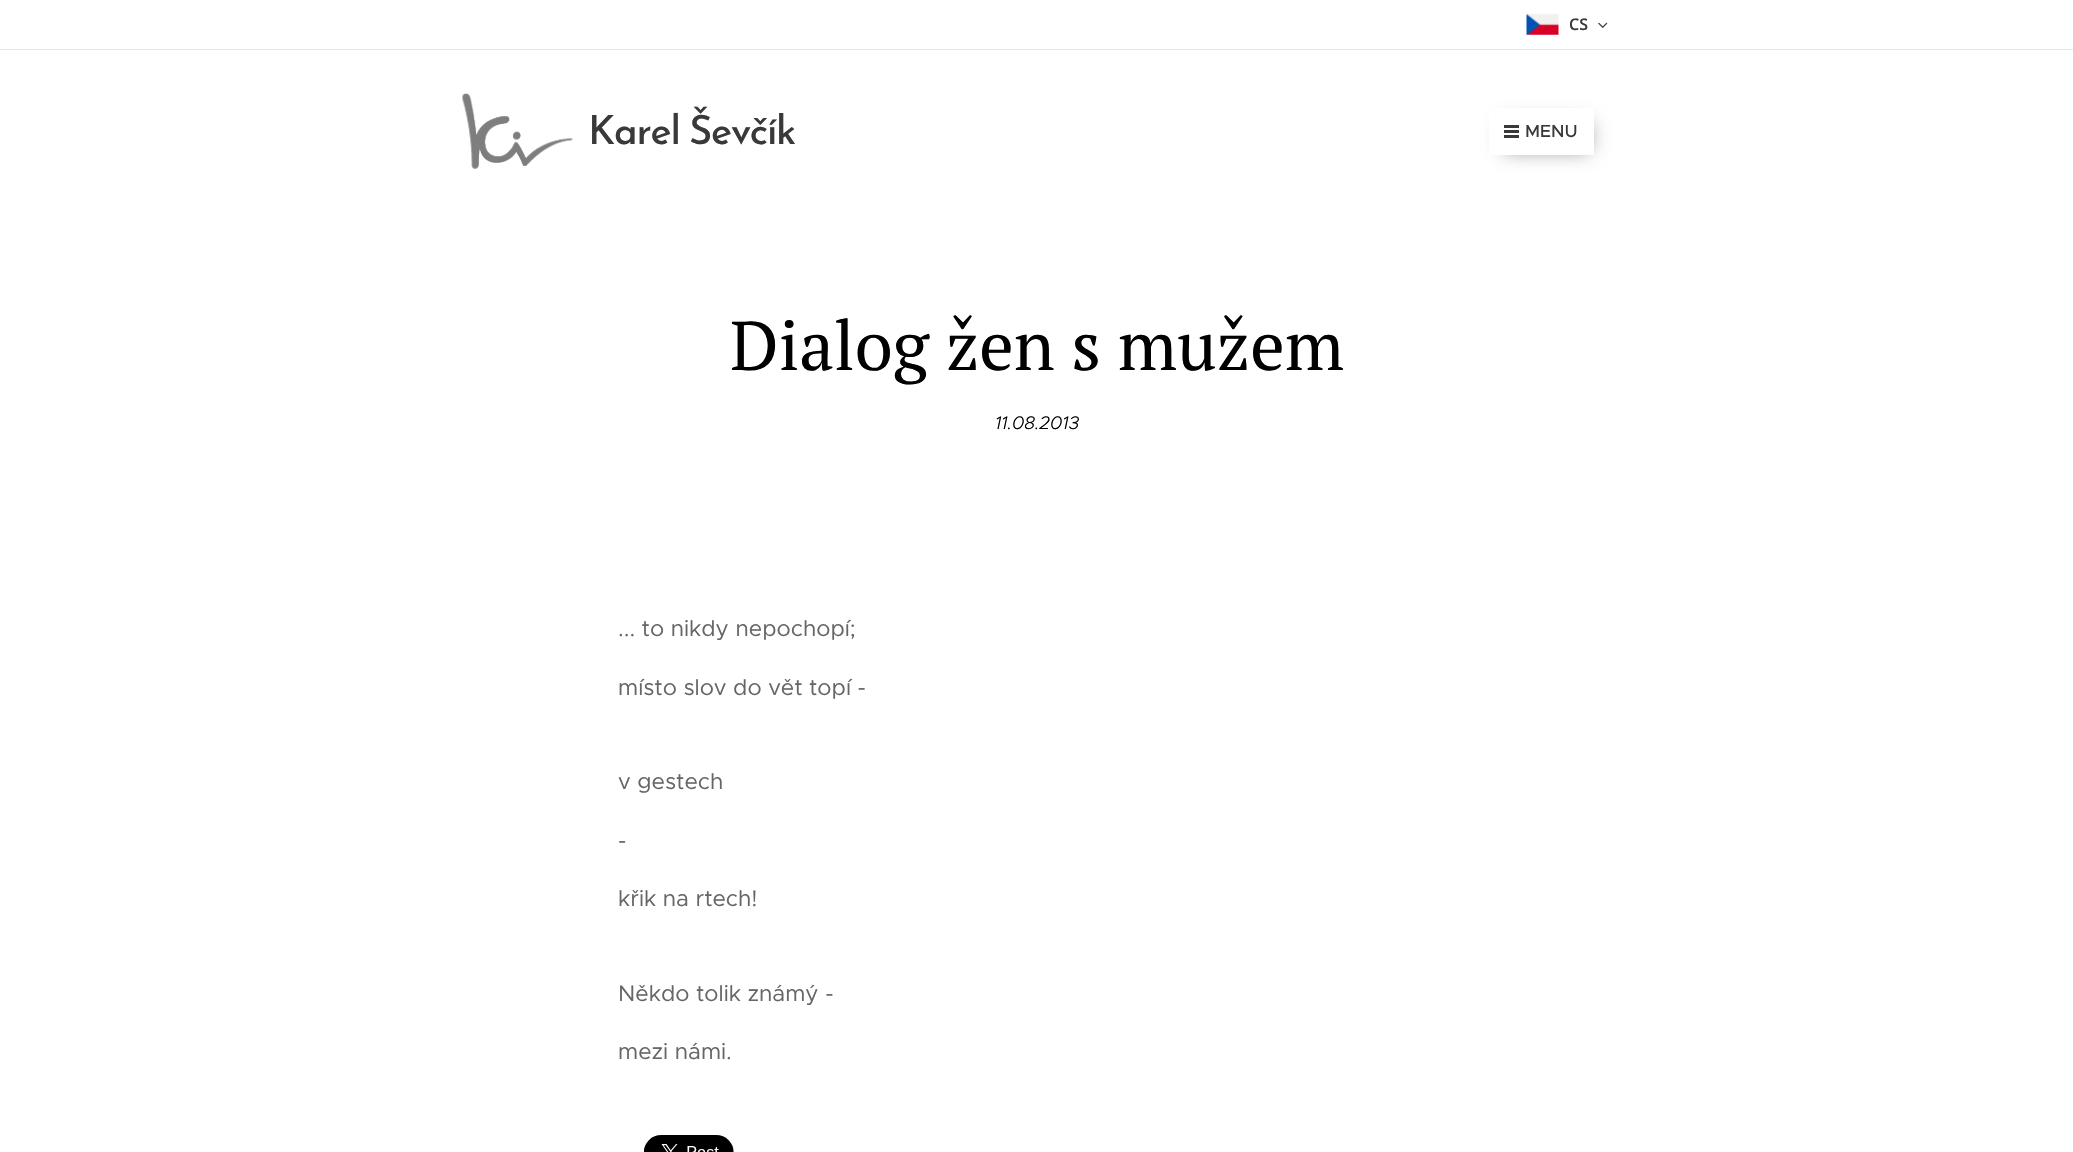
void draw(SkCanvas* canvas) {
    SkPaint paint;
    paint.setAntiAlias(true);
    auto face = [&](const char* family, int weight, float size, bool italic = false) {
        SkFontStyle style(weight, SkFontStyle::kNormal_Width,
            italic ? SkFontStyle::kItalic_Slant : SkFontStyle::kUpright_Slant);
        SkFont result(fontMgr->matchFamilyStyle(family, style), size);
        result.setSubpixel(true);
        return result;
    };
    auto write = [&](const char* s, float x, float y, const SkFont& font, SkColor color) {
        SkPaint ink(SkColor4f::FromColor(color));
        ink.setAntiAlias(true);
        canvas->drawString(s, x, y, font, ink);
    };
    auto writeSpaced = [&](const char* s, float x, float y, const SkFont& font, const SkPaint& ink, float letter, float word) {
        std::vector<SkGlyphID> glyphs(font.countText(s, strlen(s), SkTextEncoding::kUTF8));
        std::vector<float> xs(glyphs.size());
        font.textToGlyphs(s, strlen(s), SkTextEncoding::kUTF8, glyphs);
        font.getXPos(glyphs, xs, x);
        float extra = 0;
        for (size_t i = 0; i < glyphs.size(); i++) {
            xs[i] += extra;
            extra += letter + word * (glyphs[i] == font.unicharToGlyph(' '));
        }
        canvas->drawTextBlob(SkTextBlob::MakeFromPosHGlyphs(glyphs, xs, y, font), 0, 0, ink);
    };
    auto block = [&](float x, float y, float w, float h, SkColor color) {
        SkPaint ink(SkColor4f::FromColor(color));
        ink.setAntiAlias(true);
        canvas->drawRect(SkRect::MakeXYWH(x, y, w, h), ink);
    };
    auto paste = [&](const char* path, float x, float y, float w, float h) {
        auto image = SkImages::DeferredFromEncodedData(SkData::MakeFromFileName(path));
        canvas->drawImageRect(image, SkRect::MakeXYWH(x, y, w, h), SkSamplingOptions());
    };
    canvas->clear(SK_ColorWHITE);
    paste("pic1.png", 1526, 13, 33, 22);
    auto kFont1 = face("Open Sans", 600, 16);
    write("CS", 1569, 30, kFont1, SkColorSetRGB(57, 57, 57));
    paste("pic2.png", 1598, 22, 10, 6);
    block(0, 49, 2073, 1, SkColorSetRGB(232, 232, 232));
    paste("pic3.png", 462, 93, 111, 76);
    auto kFont2 = face("Josefin Sans", 500, 40);
    paint.setColor(SkColorSetRGB(57, 57, 57));
    writeSpaced("Karel Ševčík", 588, 144, kFont2, paint, -1.25f, -2);
    paint.setColor(SkColorSetARGB(128, 0, 0, 0));
    paint.setMaskFilter(SkMaskFilter::MakeBlur(kNormal_SkBlurStyle, 10));
    canvas->drawRect(SkRect::MakeXYWH(1504, 123, 85, 27), paint);
    paint.setMaskFilter(nullptr);
    block(1489, 108, 105, 47, SK_ColorWHITE);
    block(1504, 130, 15, 3, SkColorSetRGB(57, 57, 57));
    block(1504, 125, 15, 3, SkColorSetRGB(57, 57, 57));
    block(1504, 135, 15, 3, SkColorSetRGB(57, 57, 57));
    auto kFont3 = face("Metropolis", 500, 17.5f);
    write("MENU", 1525, 137, kFont3, SkColorSetRGB(57, 57, 57));
    auto kFont4 = face("PT Serif", 400, 68.75f);
    write("Dialog žen s mužem", 730, 370, kFont4, SK_ColorBLACK);
    auto kFont5 = face("Metropolis", 300, 18.25f, true);
    write("11.08.2013", 995, 429, kFont5, SK_ColorBLACK);
    auto kFont6 = face("Metropolis", 400, 22.5f);
    write("... to nikdy nepochopí;", 618, 636, kFont6, SkColorSetRGB(102, 102, 102));
    write("místo slov do vět topí -", 618, 695, kFont6, SkColorSetRGB(102, 102, 102));
    write("v gestech", 618, 789, kFont6, SkColorSetRGB(102, 102, 102));
    write("-", 618, 848, kFont6, SkColorSetRGB(102, 102, 102));
    write("křik na rtech!", 618, 906, kFont6, SkColorSetRGB(102, 102, 102));
    write("Někdo tolik známý -", 618, 1001, kFont6, SkColorSetRGB(102, 102, 102));
    write("mezi námi.", 618, 1059, kFont6, SkColorSetRGB(102, 102, 102));
    paste("pic4.png", 643, 1135, 91, 17);
}
